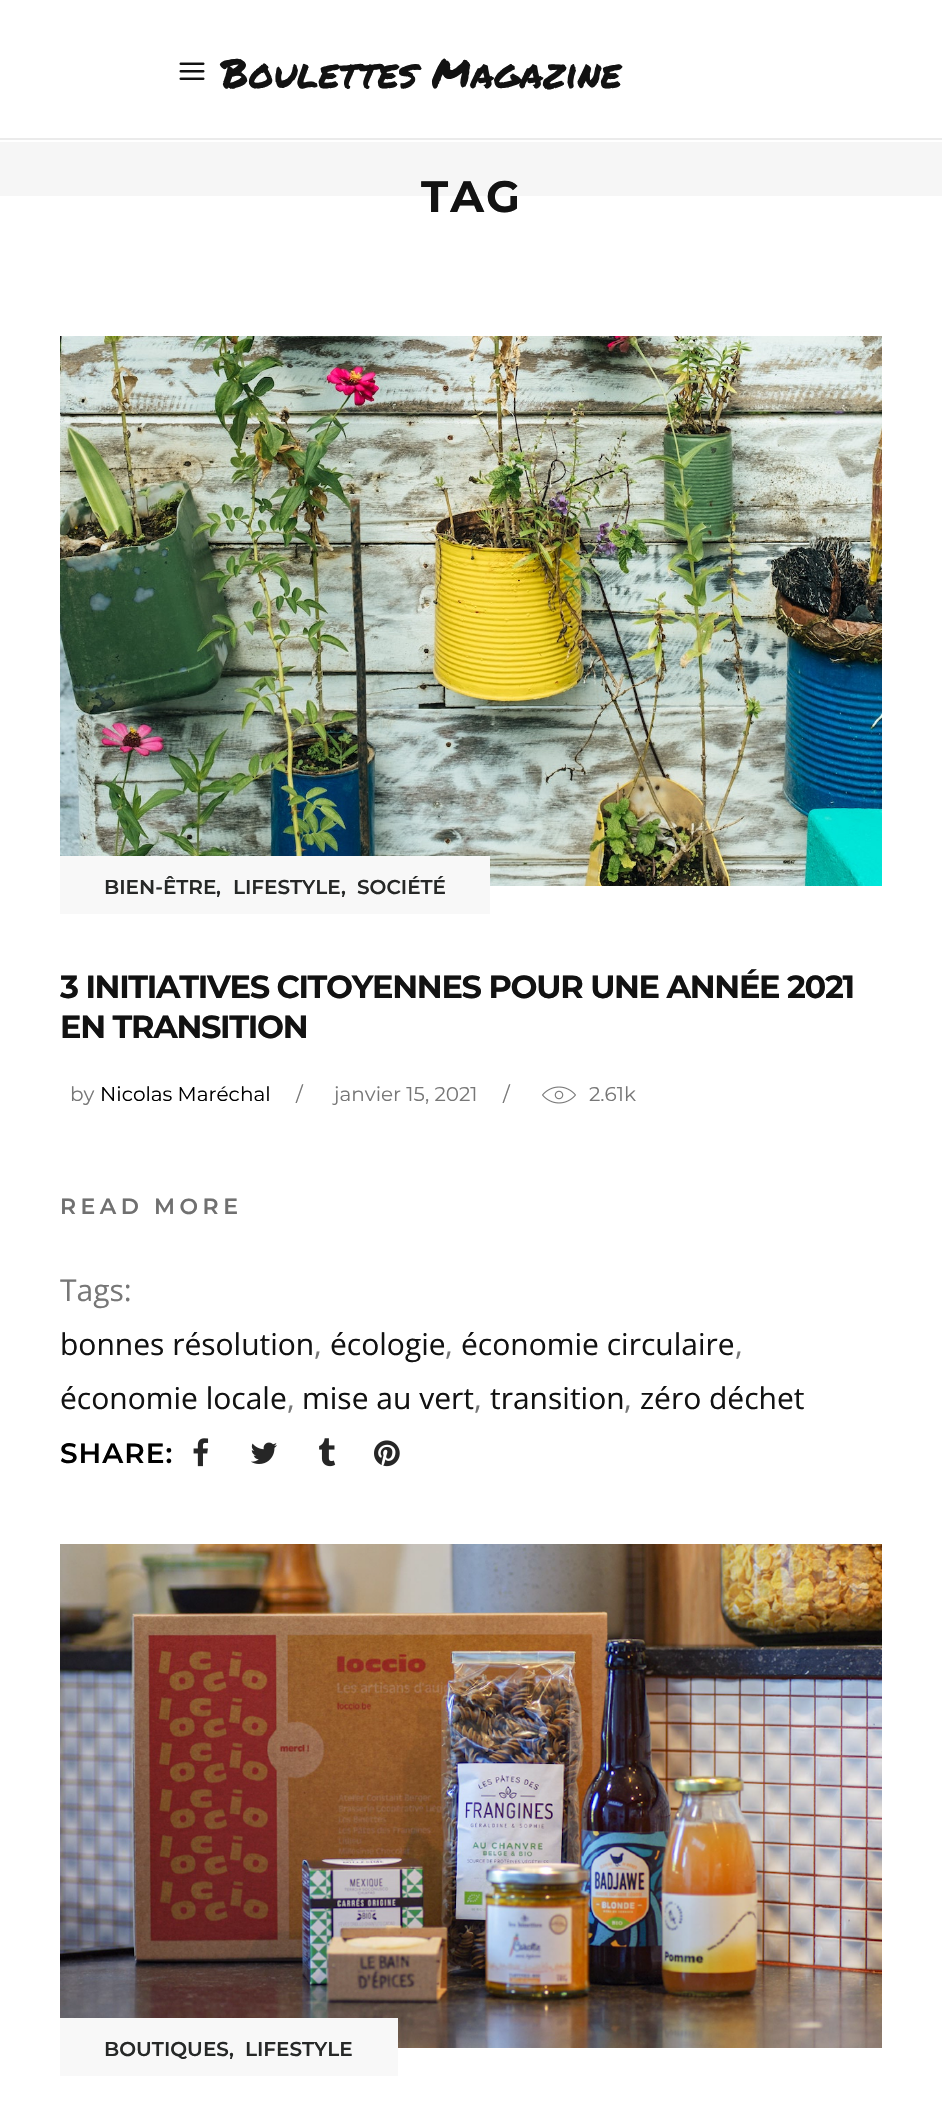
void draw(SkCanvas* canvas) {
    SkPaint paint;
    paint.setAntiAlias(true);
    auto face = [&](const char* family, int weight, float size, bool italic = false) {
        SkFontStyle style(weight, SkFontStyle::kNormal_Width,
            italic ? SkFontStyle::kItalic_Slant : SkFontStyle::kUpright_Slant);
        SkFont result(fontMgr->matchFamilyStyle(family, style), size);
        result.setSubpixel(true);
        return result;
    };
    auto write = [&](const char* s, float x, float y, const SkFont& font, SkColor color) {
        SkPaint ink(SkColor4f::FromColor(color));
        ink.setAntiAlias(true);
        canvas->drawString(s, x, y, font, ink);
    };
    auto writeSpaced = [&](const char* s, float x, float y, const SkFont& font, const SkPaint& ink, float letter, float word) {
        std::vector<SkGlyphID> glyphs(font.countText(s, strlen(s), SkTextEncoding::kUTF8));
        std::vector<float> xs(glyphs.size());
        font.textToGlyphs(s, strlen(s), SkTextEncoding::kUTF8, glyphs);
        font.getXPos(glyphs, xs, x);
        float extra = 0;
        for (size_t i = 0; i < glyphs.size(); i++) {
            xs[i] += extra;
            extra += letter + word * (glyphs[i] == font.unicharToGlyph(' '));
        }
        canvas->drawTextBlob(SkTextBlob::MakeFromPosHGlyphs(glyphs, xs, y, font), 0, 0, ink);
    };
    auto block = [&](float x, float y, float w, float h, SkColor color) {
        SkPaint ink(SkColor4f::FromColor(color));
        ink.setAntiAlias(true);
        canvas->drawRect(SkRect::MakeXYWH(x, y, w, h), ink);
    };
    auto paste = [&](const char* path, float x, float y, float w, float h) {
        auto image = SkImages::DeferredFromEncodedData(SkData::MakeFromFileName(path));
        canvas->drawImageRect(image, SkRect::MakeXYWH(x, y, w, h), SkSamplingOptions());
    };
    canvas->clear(SK_ColorWHITE);
    block(0, 138, 942, 2, SkColorSetRGB(235, 235, 235));
    paste("pic1.png", 179, 62, 26, 18);
    auto kFont1 = face("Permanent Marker", 400, 40);
    write("Boulettes Magazine", 221, 88, kFont1, SkColorSetRGB(18, 18, 18));
    block(0, 142, 942, 54, SkColorSetRGB(246, 246, 246));
    auto kFont2 = face("Montserrat", 700, 44);
    paint.setColor(SkColorSetRGB(18, 18, 18));
    writeSpaced("TAG", 421, 212, kFont2, paint, 2, 0);
    paste("pic2.png", 60, 336, 822, 550);
    block(60, 856, 430, 58, SkColorSetRGB(248, 248, 248));
    auto kFont3 = face("Montserrat", 600, 20);
    write("BIEN-ÊTRE", 104, 894, kFont3, SkColorSetRGB(38, 40, 39));
    paint.setColor(SkColorSetRGB(38, 40, 39));
    writeSpaced(",", 216, 894, kFont3, paint, 3, 0);
    write("LIFESTYLE", 233, 894, kFont3, SkColorSetRGB(38, 40, 39));
    writeSpaced(",", 341, 894, kFont3, paint, 3, 0);
    write("SOCIÉTÉ", 357, 894, kFont3, SkColorSetRGB(38, 40, 39));
    auto kFont4 = face("Montserrat", 700, 32);
    paint.setColor(SkColorSetRGB(18, 18, 18));
    writeSpaced("3 INITIATIVES CITOYENNES POUR UNE ANNÉE 2021", 60, 998, kFont4, paint, -1.3f, 0);
    writeSpaced("EN TRANSITION", 60, 1038, kFont4, paint, -1.3f, 0);
    auto kFont5 = face("Montserrat", 400, 20);
    write("by", 70, 1101, kFont5, SkColorSetRGB(119, 119, 119));
    write("Nicolas Maréchal", 100, 1101, kFont5, SK_ColorBLACK);
    write("/", 296, 1101, kFont5, SkColorSetRGB(119, 119, 119));
    write("janvier 15, 2021", 334, 1101, kFont5, SkColorSetRGB(119, 119, 119));
    write("/", 503, 1101, kFont5, SkColorSetRGB(119, 119, 119));
    paste("pic3.png", 542, 1086, 34, 18);
    write("2.61k", 589, 1101, kFont5, SkColorSetRGB(119, 119, 119));
    auto kFont6 = face("Montserrat", 600, 22);
    paint.setColor(SkColorSetRGB(112, 112, 112));
    writeSpaced("READ MORE", 60, 1214, kFont6, paint, 4.5f, 0);
    auto kFont7 = face("Open Sans", 400, 30);
    write("Tags:", 60, 1301, kFont7, SkColorSetRGB(119, 119, 119));
    write("bonnes résolution", 60, 1355, kFont7, SkColorSetRGB(18, 18, 18));
    write(",", 314, 1355, kFont7, SkColorSetRGB(119, 119, 119));
    write("écologie", 330, 1355, kFont7, SkColorSetRGB(18, 18, 18));
    write(",", 445, 1355, kFont7, SkColorSetRGB(119, 119, 119));
    write("économie circulaire", 461, 1355, kFont7, SkColorSetRGB(18, 18, 18));
    write(",", 735, 1355, kFont7, SkColorSetRGB(119, 119, 119));
    write("économie locale", 60, 1409, kFont7, SkColorSetRGB(18, 18, 18));
    write(",", 287, 1409, kFont7, SkColorSetRGB(119, 119, 119));
    write("mise au vert", 302, 1409, kFont7, SkColorSetRGB(18, 18, 18));
    write(",", 474, 1409, kFont7, SkColorSetRGB(119, 119, 119));
    write("transition", 490, 1409, kFont7, SkColorSetRGB(18, 18, 18));
    write(",", 624, 1409, kFont7, SkColorSetRGB(119, 119, 119));
    write("zéro déchet", 640, 1409, kFont7, SkColorSetRGB(18, 18, 18));
    auto kFont8 = face("Montserrat", 600, 28);
    paint.setColor(SK_ColorBLACK);
    writeSpaced("SHARE:", 60, 1463, kFont8, paint, 1, 0);
    paste("pic4.png", 193, 1438, 16, 29);
    paste("pic5.png", 251, 1442, 26, 22);
    paste("pic6.png", 319, 1438, 17, 29);
    paste("pic7.png", 374, 1440, 26, 27);
    paste("pic8.png", 60, 1544, 822, 504);
    block(60, 2018, 338, 58, SkColorSetRGB(248, 248, 248));
    write("BOUTIQUES", 104, 2056, kFont3, SkColorSetRGB(38, 40, 39));
    paint.setColor(SkColorSetRGB(38, 40, 39));
    writeSpaced(",", 229, 2056, kFont3, paint, 3, 0);
    write("LIFESTYLE", 245, 2056, kFont3, SkColorSetRGB(38, 40, 39));
}
